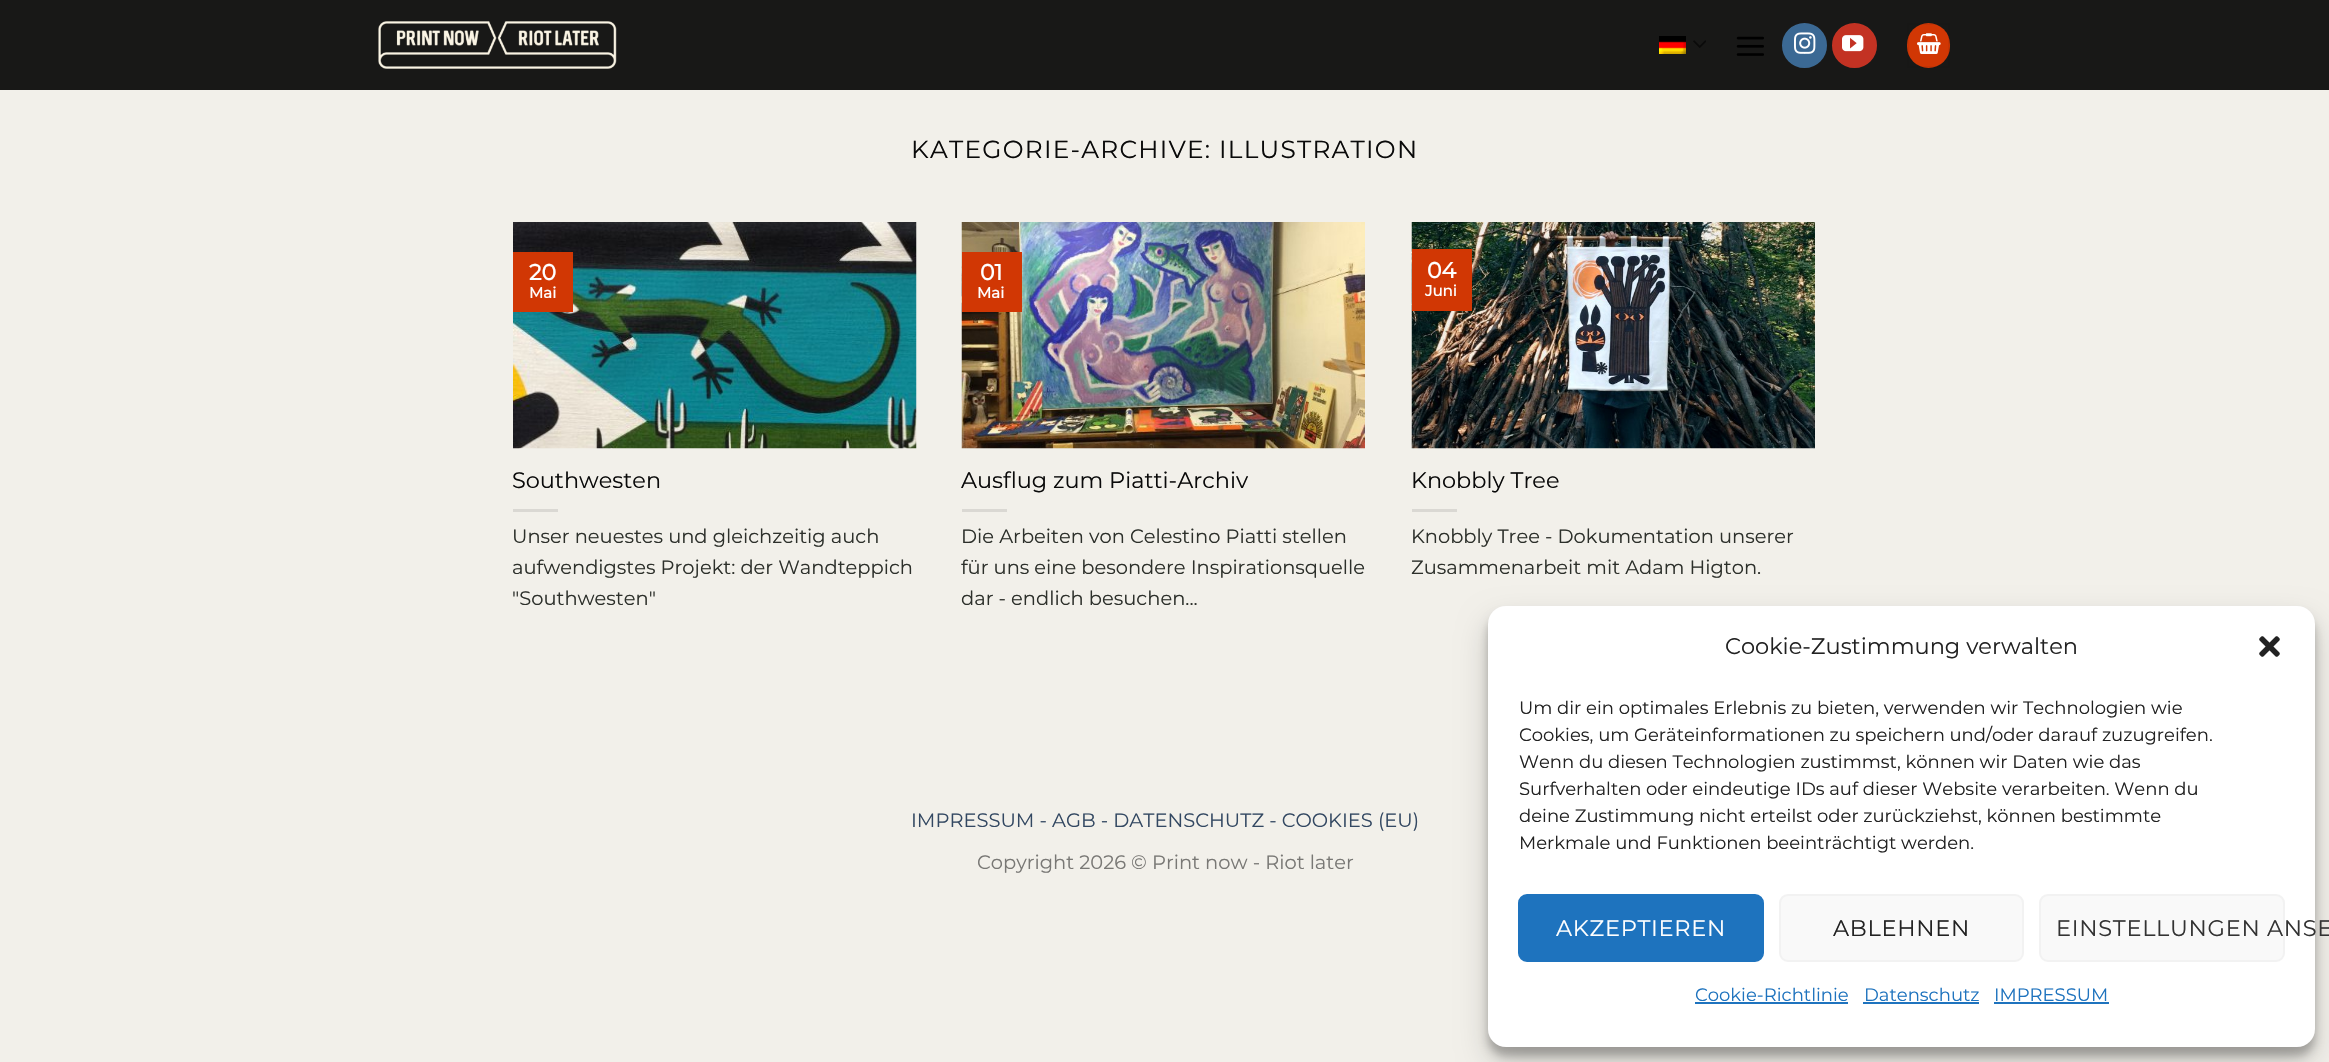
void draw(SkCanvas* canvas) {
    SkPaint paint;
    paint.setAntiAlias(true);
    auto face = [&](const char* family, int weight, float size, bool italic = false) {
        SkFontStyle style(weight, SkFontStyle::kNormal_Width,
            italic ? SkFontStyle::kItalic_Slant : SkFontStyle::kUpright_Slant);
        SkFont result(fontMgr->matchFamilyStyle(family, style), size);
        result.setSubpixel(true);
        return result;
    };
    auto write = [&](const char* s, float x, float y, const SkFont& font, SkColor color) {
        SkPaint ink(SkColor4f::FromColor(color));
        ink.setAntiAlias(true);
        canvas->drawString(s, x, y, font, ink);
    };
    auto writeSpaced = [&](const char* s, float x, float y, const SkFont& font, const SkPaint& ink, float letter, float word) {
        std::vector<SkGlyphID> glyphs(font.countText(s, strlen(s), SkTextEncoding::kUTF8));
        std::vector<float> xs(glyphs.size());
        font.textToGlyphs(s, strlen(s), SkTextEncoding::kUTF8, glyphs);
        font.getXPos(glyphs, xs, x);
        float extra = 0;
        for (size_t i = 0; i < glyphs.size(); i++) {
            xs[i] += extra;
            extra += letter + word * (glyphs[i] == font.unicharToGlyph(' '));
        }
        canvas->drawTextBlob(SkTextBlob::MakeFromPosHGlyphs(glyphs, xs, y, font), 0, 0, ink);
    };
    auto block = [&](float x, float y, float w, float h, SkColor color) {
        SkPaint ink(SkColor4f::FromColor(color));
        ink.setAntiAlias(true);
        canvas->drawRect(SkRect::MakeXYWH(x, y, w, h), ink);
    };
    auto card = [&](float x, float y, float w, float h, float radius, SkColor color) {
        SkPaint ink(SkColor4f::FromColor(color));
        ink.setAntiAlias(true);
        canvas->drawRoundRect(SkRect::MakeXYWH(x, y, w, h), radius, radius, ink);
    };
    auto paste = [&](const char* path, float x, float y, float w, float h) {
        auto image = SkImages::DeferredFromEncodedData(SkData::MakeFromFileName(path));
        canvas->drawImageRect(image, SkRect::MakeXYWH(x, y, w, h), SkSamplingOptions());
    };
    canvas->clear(SkColorSetRGB(242, 240, 234));
    block(0, 0, 2329, 90, SkColorSetRGB(24, 24, 23));
    paste("pic1.png", 378, 21, 239, 48);
    paste("pic2.png", 1659, 36, 27, 18);
    paste("pic3.png", 1693, 40, 13, 8);
    paste("pic4.png", 1736, 36, 28, 20);
    paint.setColor(SkColorSetRGB(59, 105, 148));
    canvas->drawCircle(1804.5f, 45.5f, 21.5f, paint);
    paint.setStyle(SkPaint::kStroke_Style);
    paint.setStrokeWidth(2);
    canvas->drawCircle(1804.5f, 45.5f, 21.5f, paint);
    paste("pic5.png", 1794, 32, 22, 22);
    paint.setStyle(SkPaint::kFill_Style);
    paint.setColor(SkColorSetRGB(195, 50, 35));
    canvas->drawCircle(1854.5f, 45.5f, 21.5f, paint);
    paint.setStyle(SkPaint::kStroke_Style);
    canvas->drawCircle(1854.5f, 45.5f, 21.5f, paint);
    paste("pic6.png", 1842, 35, 22, 17);
    card(1907, 23, 43, 45, 21.5f, SkColorSetRGB(209, 55, 4));
    paint.setColor(SkColorSetARGB(13, 0, 0, 0));
    canvas->drawRect(SkRect::MakeXYWH(1908, 24, 41, 43), paint);
    paste("pic7.png", 1917, 33, 24, 21);
    auto kFont1 = face("Montserrat", 100, 24.8f);
    paint.setStyle(SkPaint::kFill_Style);
    paint.setColor(SkColorSetRGB(10, 10, 10));
    writeSpaced("KATEGORIE-ARCHIVE: ILLUSTRATION", 911, 158, kFont1, paint, 1.25f, 0);
    paste("pic8.png", 513, 222, 404, 227);
    block(513, 252, 60, 60, SkColorSetRGB(209, 55, 4));
    auto kFont2 = face("Montserrat", 700, 22);
    write("20", 529, 280, kFont2, SK_ColorWHITE);
    auto kFont3 = face("Montserrat", 700, 15);
    write("Mai", 529, 298, kFont3, SK_ColorWHITE);
    auto kFont4 = face("Montserrat", 100, 22.4f);
    write("Southwesten", 512, 488, kFont4, SkColorSetRGB(10, 10, 10));
    block(513, 509, 45, 3, SkColorSetRGB(218, 216, 211));
    auto kFont5 = face("Montserrat", 100, 19.45f);
    write("Unser neuestes und gleichzeitig auch", 512, 543, kFont5, SkColorSetRGB(45, 48, 43));
    write("aufwendigstes Projekt: der Wandteppich", 512, 574, kFont5, SkColorSetRGB(45, 48, 43));
    write("\"Southwesten\"", 512, 605, kFont5, SkColorSetRGB(45, 48, 43));
    paste("pic9.png", 961, 222, 404, 227);
    block(962, 252, 60, 60, SkColorSetRGB(209, 55, 4));
    write("01", 980, 280, kFont2, SK_ColorWHITE);
    write("Mai", 977, 298, kFont3, SK_ColorWHITE);
    write("Ausflug zum Piatti-Archiv", 961, 488, kFont4, SkColorSetRGB(10, 10, 10));
    block(962, 509, 45, 3, SkColorSetRGB(218, 216, 211));
    write("Die Arbeiten von Celestino Piatti stellen", 961, 543, kFont5, SkColorSetRGB(45, 48, 43));
    write("für uns eine besondere Inspirationsquelle", 961, 574, kFont5, SkColorSetRGB(45, 48, 43));
    write("dar - endlich besuchen...", 961, 605, kFont5, SkColorSetRGB(45, 48, 43));
    paste("pic10.png", 1411, 222, 404, 227);
    block(1412, 249, 60, 62, SkColorSetRGB(209, 55, 4));
    write("04", 1427, 278, kFont2, SK_ColorWHITE);
    write("Juni", 1425, 296, kFont3, SK_ColorWHITE);
    write("Knobbly Tree", 1411, 488, kFont4, SkColorSetRGB(10, 10, 10));
    block(1412, 509, 45, 3, SkColorSetRGB(218, 216, 211));
    write("Knobbly Tree - Dokumentation unserer", 1411, 543, kFont5, SkColorSetRGB(45, 48, 43));
    write("Zusammenarbeit mit Adam Higton.", 1411, 574, kFont5, SkColorSetRGB(45, 48, 43));
    write("IMPRESSUM - AGB - DATENSCHUTZ - COOKIES (EU)", 911, 827, kFont5, SkColorSetRGB(51, 72, 98));
    write("Copyright 2026 © Print now - Riot later", 977, 869, kFont5, SkColorSetRGB(121, 120, 117));
    paint.setColor(SkColorSetARGB(59, 0, 0, 0));
    paint.setMaskFilter(SkMaskFilter::MakeBlur(kNormal_SkBlurStyle, 4.5f));
    canvas->drawRoundRect(SkRect::MakeXYWH(1488, 615, 827, 441), 18, 18, paint);
    paint.setMaskFilter(nullptr);
    paint.setColor(SkColorSetARGB(48, 0, 0, 0));
    paint.setMaskFilter(SkMaskFilter::MakeBlur(kNormal_SkBlurStyle, 15));
    canvas->drawRoundRect(SkRect::MakeXYWH(1488, 621, 827, 441), 18, 18, paint);
    paint.setMaskFilter(nullptr);
    card(1488, 606, 827, 441, 18, SK_ColorWHITE);
    auto kFont6 = face("Montserrat", 100, 22.5f);
    write("Cookie-Zustimmung verwalten", 1725, 654, kFont6, SkColorSetRGB(34, 34, 34));
    paste("pic11.png", 2259, 636, 21, 21);
    auto kFont7 = face("Montserrat", 100, 18);
    write("Um dir ein optimales Erlebnis zu bieten, verwenden wir Technologien wie", 1519, 714, kFont7, SkColorSetRGB(34, 34, 34));
    write("Cookies, um Geräteinformationen zu speichern und/oder darauf zuzugreifen.", 1519, 741, kFont7, SkColorSetRGB(34, 34, 34));
    write("Wenn du diesen Technologien zustimmst, können wir Daten wie das", 1519, 768, kFont7, SkColorSetRGB(34, 34, 34));
    write("Surfverhalten oder eindeutige IDs auf dieser Website verarbeiten. Wenn du", 1519, 795, kFont7, SkColorSetRGB(34, 34, 34));
    write("deine Zustimmung nicht erteilst oder zurückziehst, können bestimmte", 1519, 822, kFont7, SkColorSetRGB(34, 34, 34));
    write("Merkmale und Funktionen beeinträchtigt werden.", 1519, 849, kFont7, SkColorSetRGB(34, 34, 34));
    paint.setColor(SkColorSetRGB(30, 115, 190));
    canvas->drawRoundRect(SkRect::MakeXYWH(1519, 895, 244, 66), 8, 8, paint);
    paint.setStyle(SkPaint::kStroke_Style);
    canvas->drawRoundRect(SkRect::MakeXYWH(1519, 895, 244, 66), 8, 8, paint);
    paint.setStyle(SkPaint::kFill_Style);
    paint.setColor(SK_ColorWHITE);
    writeSpaced("AKZEPTIEREN", 1556, 936, kFont6, paint, 0.7f, 0);
    paint.setColor(SkColorSetRGB(249, 249, 249));
    canvas->drawRoundRect(SkRect::MakeXYWH(1780, 895, 243, 66), 8, 8, paint);
    paint.setStyle(SkPaint::kStroke_Style);
    paint.setColor(SkColorSetRGB(242, 242, 242));
    canvas->drawRoundRect(SkRect::MakeXYWH(1780, 895, 243, 66), 8, 8, paint);
    paint.setStyle(SkPaint::kFill_Style);
    paint.setColor(SkColorSetRGB(34, 34, 34));
    writeSpaced("ABLEHNEN", 1833, 936, kFont6, paint, 0.7f, 0);
    paint.setColor(SkColorSetRGB(249, 249, 249));
    canvas->drawRoundRect(SkRect::MakeXYWH(2040, 895, 244, 66), 8, 8, paint);
    paint.setStyle(SkPaint::kStroke_Style);
    paint.setColor(SkColorSetRGB(242, 242, 242));
    canvas->drawRoundRect(SkRect::MakeXYWH(2040, 895, 244, 66), 8, 8, paint);
    paint.setStyle(SkPaint::kFill_Style);
    paint.setColor(SkColorSetRGB(51, 51, 51));
    writeSpaced("EINSTELLUNGEN ANSE", 2056, 936, kFont6, paint, 0.7f, 0);
    write("Cookie-Richtlinie", 1695, 1001, kFont7, SkColorSetRGB(30, 115, 190));
    block(1695, 1002, 153, 2, SkColorSetRGB(30, 115, 190));
    write("Datenschutz", 1864, 1001, kFont7, SkColorSetRGB(30, 115, 190));
    block(1863, 1002, 116, 2, SkColorSetRGB(30, 115, 190));
    write("IMPRESSUM", 1994, 1001, kFont7, SkColorSetRGB(30, 115, 190));
    block(1994, 1002, 115, 2, SkColorSetRGB(30, 115, 190));
}
